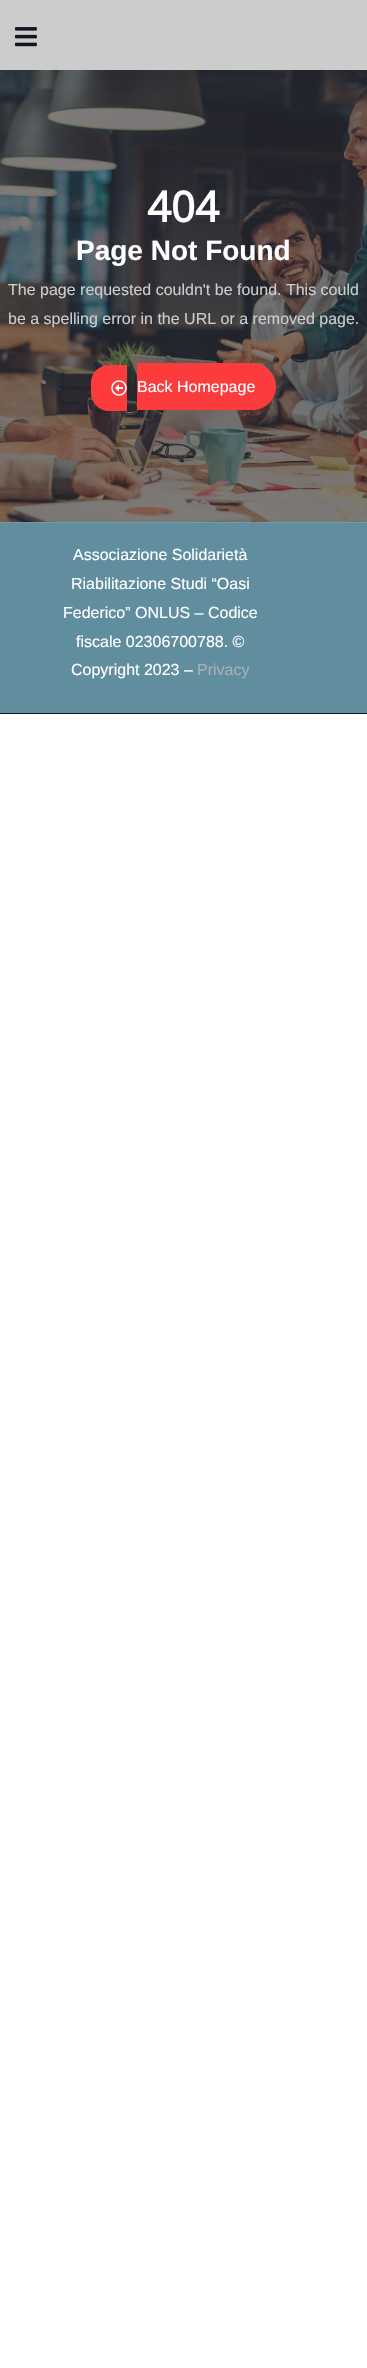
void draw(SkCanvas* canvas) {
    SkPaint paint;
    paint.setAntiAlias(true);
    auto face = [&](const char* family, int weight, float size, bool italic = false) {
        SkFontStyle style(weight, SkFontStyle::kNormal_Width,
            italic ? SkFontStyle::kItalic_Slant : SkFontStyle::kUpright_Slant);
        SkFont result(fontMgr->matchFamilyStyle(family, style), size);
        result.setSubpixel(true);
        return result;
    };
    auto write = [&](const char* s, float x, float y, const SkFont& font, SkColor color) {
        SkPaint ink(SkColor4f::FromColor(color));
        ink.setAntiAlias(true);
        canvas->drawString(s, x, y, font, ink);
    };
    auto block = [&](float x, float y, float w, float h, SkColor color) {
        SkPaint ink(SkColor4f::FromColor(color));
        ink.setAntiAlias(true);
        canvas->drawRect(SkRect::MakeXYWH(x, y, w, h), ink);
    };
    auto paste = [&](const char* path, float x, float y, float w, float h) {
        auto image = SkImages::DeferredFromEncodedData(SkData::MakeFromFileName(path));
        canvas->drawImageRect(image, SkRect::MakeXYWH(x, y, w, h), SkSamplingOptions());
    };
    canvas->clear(SK_ColorWHITE);
    paste("pic2.png", 0, 70, 367, 452);
    paint.setColor(SkColorSetARGB(18, 0, 0, 0));
    paint.setMaskFilter(SkMaskFilter::MakeBlur(kNormal_SkBlurStyle, 15));
    canvas->drawRect(SkRect::MakeXYWH(0, 5, 367, 70), paint);
    paint.setMaskFilter(nullptr);
    block(0, 0, 367, 70, SkColorSetRGB(204, 204, 204));
    paste("pic1.png", 15, 27, 22, 20);
    auto kFont1 = face("Open Sans", 700, 42);
    write("404", 147, 222, kFont1, SK_ColorWHITE);
    auto kFont2 = face("Liberation Sans", 700, 28);
    write("Page Not Found", 76, 260, kFont2, SK_ColorWHITE);
    auto kFont3 = face("Liberation Sans", 400, 16);
    write("The page requested couldn't be found. This could", 8, 295, kFont3, SkColorSetRGB(204, 204, 204));
    write("be a spelling error in the URL or a removed page.", 8, 324, kFont3, SkColorSetRGB(204, 204, 204));
    paint.setColor(SkColorSetRGB(252, 60, 60));
    canvas->drawPath(SkPathBuilder().moveTo(109, 365).lineTo(127, 365).lineTo(127, 411).lineTo(109, 411).cubicTo(99, 411, 91, 403, 91, 393).lineTo(91, 383).cubicTo(91, 373, 99, 365, 109, 365).close().detach(), paint);
    canvas->drawPath(SkPathBuilder().moveTo(137, 363).lineTo(252.5f, 363).cubicTo(265.5f, 363, 276, 373.5f, 276, 386.5f).cubicTo(276, 399.5f, 265.5f, 410, 252.5f, 410).lineTo(137, 410).close().detach(), paint);
    paste("pic3.png", 111, 380, 16, 16);
    write("Back Homepage", 137, 392, kFont3, SK_ColorWHITE);
    block(0, 713, 367, 1, SkColorSetRGB(22, 28, 38));
    block(0, 523, 367, 190, SkColorSetRGB(97, 142, 159));
    block(0, 522, 367, 1, SkColorSetRGB(113, 153, 169));
    write("Associazione Solidarietà", 73, 560, kFont3, SK_ColorWHITE);
    write("Riabilitazione Studi “Oasi", 71, 589, kFont3, SK_ColorWHITE);
    write("Federico” ONLUS – Codice", 63, 618, kFont3, SK_ColorWHITE);
    write("fiscale 02306700788. ©", 76, 647, kFont3, SK_ColorWHITE);
    write("Copyright 2023 –", 71, 675, kFont3, SK_ColorWHITE);
    write("Privacy", 197, 675, kFont3, SkColorSetRGB(171, 175, 181));
}
